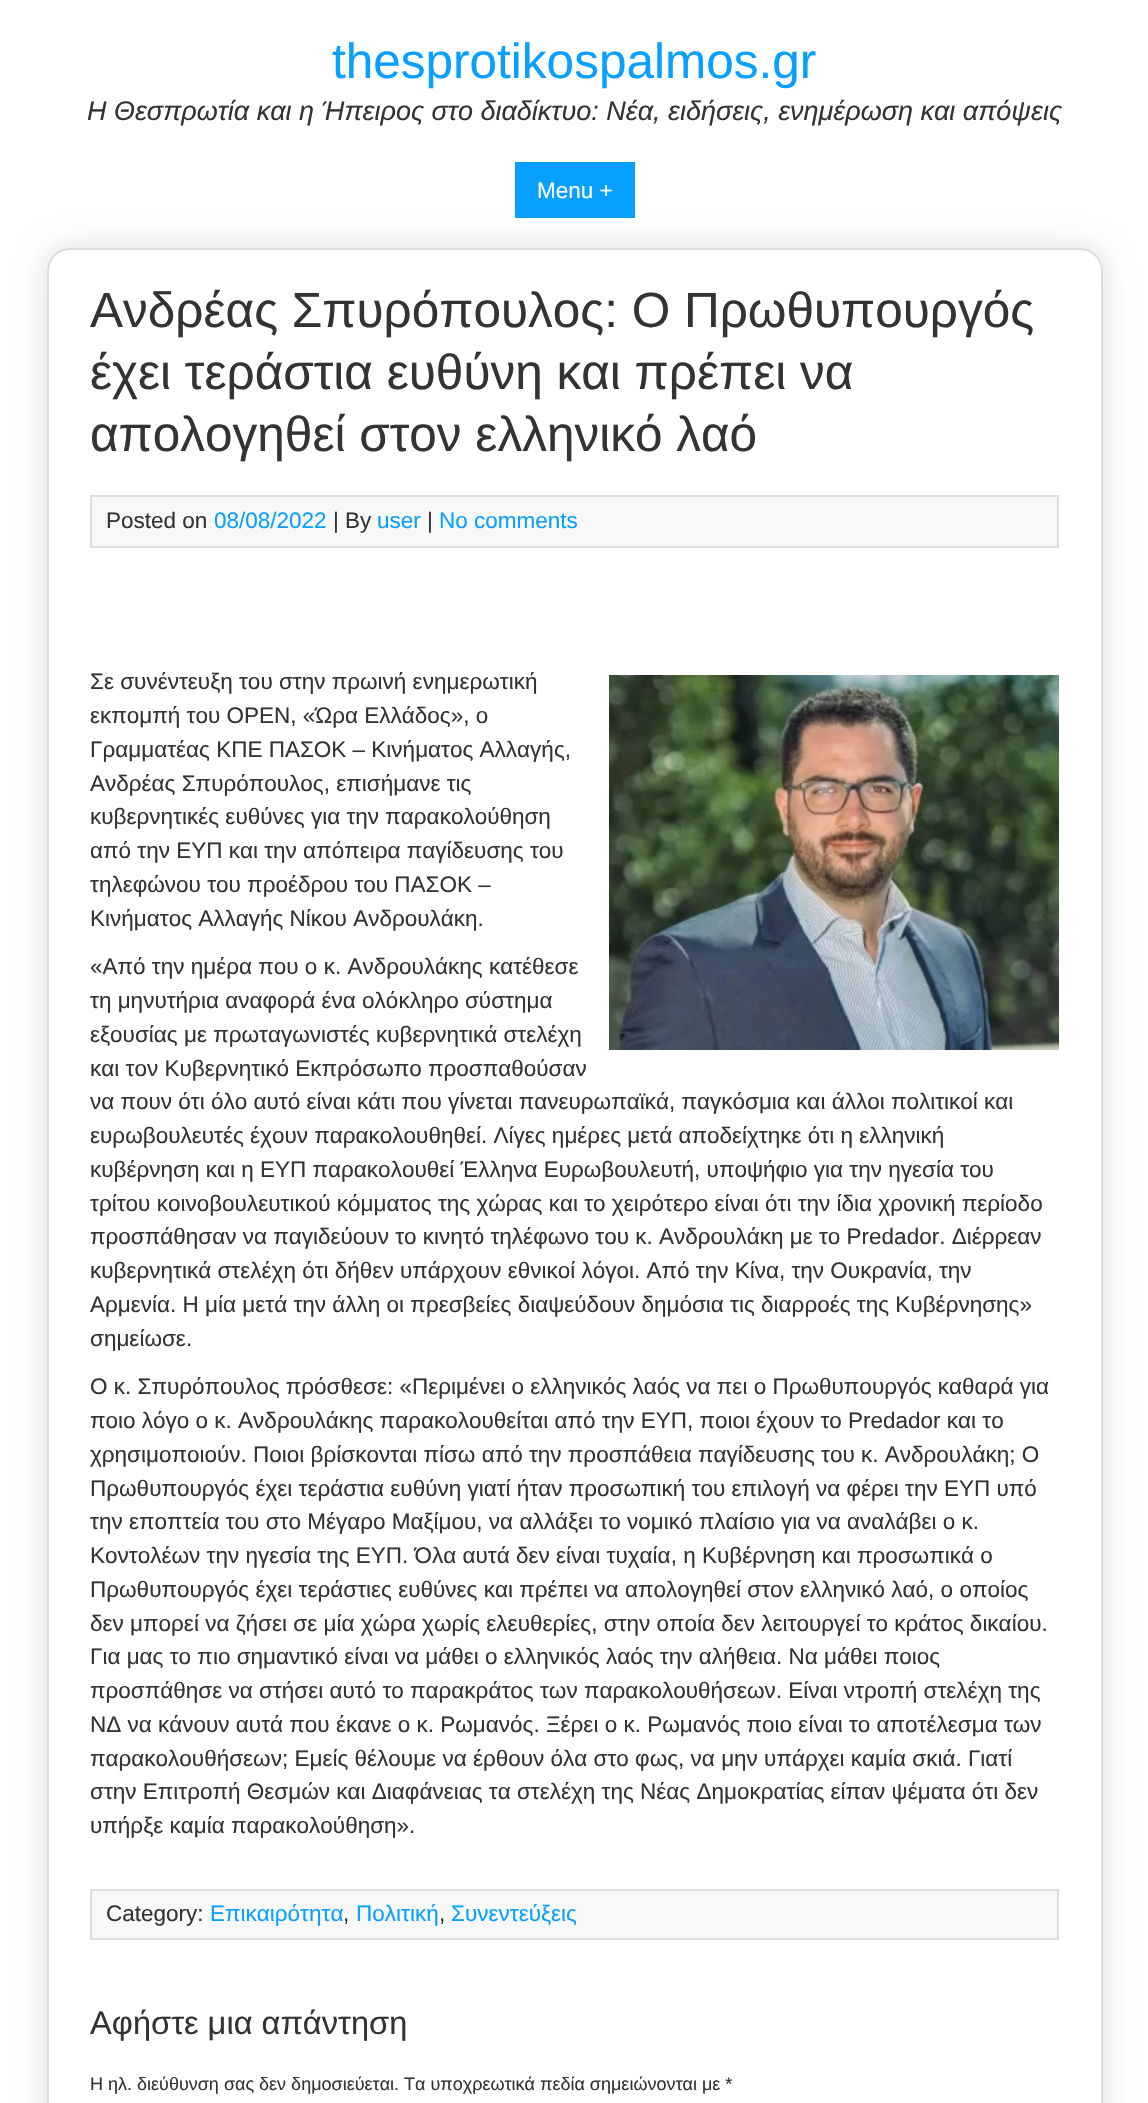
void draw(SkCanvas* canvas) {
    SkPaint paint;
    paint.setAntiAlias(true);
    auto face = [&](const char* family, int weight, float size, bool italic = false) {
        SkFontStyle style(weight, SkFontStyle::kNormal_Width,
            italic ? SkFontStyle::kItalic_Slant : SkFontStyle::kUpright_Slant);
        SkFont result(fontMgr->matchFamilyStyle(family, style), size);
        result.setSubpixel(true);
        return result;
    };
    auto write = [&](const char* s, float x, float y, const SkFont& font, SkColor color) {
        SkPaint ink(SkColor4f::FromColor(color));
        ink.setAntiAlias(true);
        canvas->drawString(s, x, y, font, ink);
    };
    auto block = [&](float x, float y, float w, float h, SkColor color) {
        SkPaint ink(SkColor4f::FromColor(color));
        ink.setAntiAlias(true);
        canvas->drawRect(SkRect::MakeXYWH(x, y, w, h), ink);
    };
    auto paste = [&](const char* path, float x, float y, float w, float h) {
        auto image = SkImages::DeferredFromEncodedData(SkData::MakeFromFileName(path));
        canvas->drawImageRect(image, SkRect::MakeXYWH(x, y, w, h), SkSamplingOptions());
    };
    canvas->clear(SK_ColorWHITE);
    auto kFont1 = face("Liberation Sans", 400, 49.5f);
    write("thesprotikospalmos.gr", 332, 78, kFont1, SkColorSetRGB(8, 160, 255));
    auto kFont2 = face("Liberation Sans", 400, 27, true);
    write("Η Θεσπρωτία και η Ήπειρος στο διαδίκτυο: Νέα, ειδήσεις, ενημέρωση και απόψεις", 87, 120, kFont2, SkColorSetRGB(51, 51, 51));
    block(515, 162, 120, 56, SkColorSetRGB(8, 160, 255));
    auto kFont3 = face("Liberation Sans", 400, 22.5f);
    write("Menu +", 537, 198, kFont3, SK_ColorWHITE);
    paint.setColor(SkColorSetRGB(221, 221, 221));
    paint.setMaskFilter(SkMaskFilter::MakeBlur(kNormal_SkBlurStyle, 15));
    canvas->drawRoundRect(SkRect::MakeXYWH(47, 248, 1056, 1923), 23, 23, paint);
    paint.setMaskFilter(nullptr);
    paint.setColor(SK_ColorWHITE);
    canvas->drawRoundRect(SkRect::MakeXYWH(48, 249, 1054, 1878), 22, 22, paint);
    paint.setStyle(SkPaint::kStroke_Style);
    paint.setStrokeWidth(2);
    paint.setColor(SkColorSetRGB(221, 221, 221));
    canvas->drawRoundRect(SkRect::MakeXYWH(48, 249, 1054, 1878), 22, 22, paint);
    write("Ανδρέας Σπυρόπουλος: Ο Πρωθυπουργός", 90, 327, kFont1, SkColorSetRGB(51, 51, 51));
    write("έχει τεράστια ευθύνη και πρέπει να", 90, 389, kFont1, SkColorSetRGB(51, 51, 51));
    write("απολογηθεί στον ελληνικό λαό", 90, 451, kFont1, SkColorSetRGB(51, 51, 51));
    paint.setStyle(SkPaint::kFill_Style);
    paint.setColor(SkColorSetRGB(248, 248, 248));
    canvas->drawRect(SkRect::MakeXYWH(91, 496, 967, 51), paint);
    paint.setStyle(SkPaint::kStroke_Style);
    paint.setColor(SkColorSetRGB(221, 221, 221));
    canvas->drawRect(SkRect::MakeXYWH(91, 496, 967, 51), paint);
    write("Posted on", 106, 528, kFont3, SkColorSetRGB(51, 51, 51));
    write("08/08/2022", 214, 528, kFont3, SkColorSetRGB(8, 160, 255));
    write("| By", 333, 528, kFont3, SkColorSetRGB(51, 51, 51));
    write("user", 377, 528, kFont3, SkColorSetRGB(8, 160, 255));
    write("|", 427, 528, kFont3, SkColorSetRGB(51, 51, 51));
    write("No comments", 439, 528, kFont3, SkColorSetRGB(8, 160, 255));
    write("Σε συνέντευξη του στην πρωινή ενημερωτική", 90, 689, kFont3, SkColorSetRGB(51, 51, 51));
    paste("pic1.png", 609, 675, 450, 375);
    write("εκπομπή του OPEN, «Ώρα Ελλάδος», ο", 90, 723, kFont3, SkColorSetRGB(51, 51, 51));
    write("Γραμματέας ΚΠΕ ΠΑΣΟΚ – Κινήματος Αλλαγής,", 90, 757, kFont3, SkColorSetRGB(51, 51, 51));
    write("Ανδρέας Σπυρόπουλος, επισήμανε τις", 90, 791, kFont3, SkColorSetRGB(51, 51, 51));
    write("κυβερνητικές ευθύνες για την παρακολούθηση", 90, 824, kFont3, SkColorSetRGB(51, 51, 51));
    write("από την ΕΥΠ και την απόπειρα παγίδευσης του", 90, 858, kFont3, SkColorSetRGB(51, 51, 51));
    write("τηλεφώνου του προέδρου του ΠΑΣΟΚ –", 90, 892, kFont3, SkColorSetRGB(51, 51, 51));
    write("Κινήματος Αλλαγής Νίκου Ανδρουλάκη.", 90, 926, kFont3, SkColorSetRGB(51, 51, 51));
    write("«Από την ημέρα που ο κ. Ανδρουλάκης κατέθεσε", 90, 974, kFont3, SkColorSetRGB(51, 51, 51));
    write("τη μηνυτήρια αναφορά ένα ολόκληρο σύστημα", 90, 1008, kFont3, SkColorSetRGB(51, 51, 51));
    write("εξουσίας με πρωταγωνιστές κυβερνητικά στελέχη", 90, 1042, kFont3, SkColorSetRGB(51, 51, 51));
    write("και τον Κυβερνητικό Εκπρόσωπο προσπαθούσαν", 90, 1076, kFont3, SkColorSetRGB(51, 51, 51));
    write("να πουν ότι όλο αυτό είναι κάτι που γίνεται πανευρωπαϊκά, παγκόσμια και άλλοι πολιτικοί και", 90, 1109, kFont3, SkColorSetRGB(51, 51, 51));
    write("ευρωβουλευτές έχουν παρακολουθηθεί. Λίγες ημέρες μετά αποδείχτηκε ότι η ελληνική", 90, 1143, kFont3, SkColorSetRGB(51, 51, 51));
    write("κυβέρνηση και η ΕΥΠ παρακολουθεί Έλληνα Ευρωβουλευτή, υποψήφιο για την ηγεσία του", 90, 1177, kFont3, SkColorSetRGB(51, 51, 51));
    write("τρίτου κοινοβουλευτικού κόμματος της χώρας και το χειρότερο είναι ότι την ίδια χρονική περίοδο", 90, 1211, kFont3, SkColorSetRGB(51, 51, 51));
    write("προσπάθησαν να παγιδεύουν το κινητό τηλέφωνο του κ. Ανδρουλάκη με το Predador. Διέρρεαν", 90, 1244, kFont3, SkColorSetRGB(51, 51, 51));
    write("κυβερνητικά στελέχη ότι δήθεν υπάρχουν εθνικοί λόγοι. Από την Κίνα, την Ουκρανία, την", 90, 1278, kFont3, SkColorSetRGB(51, 51, 51));
    write("Αρμενία. Η μία μετά την άλλη οι πρεσβείες διαψεύδουν δημόσια τις διαρροές της Κυβέρνησης»", 90, 1312, kFont3, SkColorSetRGB(51, 51, 51));
    write("σημείωσε.", 90, 1346, kFont3, SkColorSetRGB(51, 51, 51));
    write("Ο κ. Σπυρόπουλος πρόσθεσε: «Περιμένει ο ελληνικός λαός να πει ο Πρωθυπουργός καθαρά για", 90, 1394, kFont3, SkColorSetRGB(51, 51, 51));
    write("ποιο λόγο ο κ. Ανδρουλάκης παρακολουθείται από την ΕΥΠ, ποιοι έχουν το Predador και το", 90, 1428, kFont3, SkColorSetRGB(51, 51, 51));
    write("χρησιμοποιούν. Ποιοι βρίσκονται πίσω από την προσπάθεια παγίδευσης του κ. Ανδρουλάκη; Ο", 90, 1462, kFont3, SkColorSetRGB(51, 51, 51));
    write("Πρωθυπουργός έχει τεράστια ευθύνη γιατί ήταν προσωπική του επιλογή να φέρει την ΕΥΠ υπό", 90, 1496, kFont3, SkColorSetRGB(51, 51, 51));
    write("την εποπτεία του στο Μέγαρο Μαξίμου, να αλλάξει το νομικό πλαίσιο για να αναλάβει ο κ.", 90, 1529, kFont3, SkColorSetRGB(51, 51, 51));
    write("Κοντολέων την ηγεσία της ΕΥΠ. Όλα αυτά δεν είναι τυχαία, η Κυβέρνηση και προσωπικά ο", 90, 1563, kFont3, SkColorSetRGB(51, 51, 51));
    write("Πρωθυπουργός έχει τεράστιες ευθύνες και πρέπει να απολογηθεί στον ελληνικό λαό, ο οποίος", 90, 1597, kFont3, SkColorSetRGB(51, 51, 51));
    write("δεν μπορεί να ζήσει σε μία χώρα χωρίς ελευθερίες, στην οποία δεν λειτουργεί το κράτος δικαίου.", 90, 1631, kFont3, SkColorSetRGB(51, 51, 51));
    write("Για μας το πιο σημαντικό είναι να μάθει ο ελληνικός λαός την αλήθεια. Να μάθει ποιος", 90, 1664, kFont3, SkColorSetRGB(51, 51, 51));
    write("προσπάθησε να στήσει αυτό το παρακράτος των παρακολουθήσεων. Είναι ντροπή στελέχη της", 90, 1698, kFont3, SkColorSetRGB(51, 51, 51));
    write("ΝΔ να κάνουν αυτά που έκανε ο κ. Ρωμανός. Ξέρει ο κ. Ρωμανός ποιο είναι το αποτέλεσμα των", 90, 1732, kFont3, SkColorSetRGB(51, 51, 51));
    write("παρακολουθήσεων; Εμείς θέλουμε να έρθουν όλα στο φως, να μην υπάρχει καμία σκιά. Γιατί", 90, 1766, kFont3, SkColorSetRGB(51, 51, 51));
    write("στην Επιτροπή Θεσμών και Διαφάνειας τα στελέχη της Νέας Δημοκρατίας είπαν ψέματα ότι δεν", 90, 1799, kFont3, SkColorSetRGB(51, 51, 51));
    write("υπήρξε καμία παρακολούθηση».", 90, 1833, kFont3, SkColorSetRGB(51, 51, 51));
    paint.setStyle(SkPaint::kFill_Style);
    paint.setColor(SkColorSetRGB(248, 248, 248));
    canvas->drawRect(SkRect::MakeXYWH(91, 1890, 967, 49), paint);
    paint.setStyle(SkPaint::kStroke_Style);
    paint.setColor(SkColorSetRGB(221, 221, 221));
    canvas->drawRect(SkRect::MakeXYWH(91, 1890, 967, 49), paint);
    write("Category:", 106, 1921, kFont3, SkColorSetRGB(51, 51, 51));
    write("Επικαιρότητα", 210, 1921, kFont3, SkColorSetRGB(8, 160, 255));
    write(",", 343, 1921, kFont3, SkColorSetRGB(51, 51, 51));
    write("Πολιτική", 356, 1921, kFont3, SkColorSetRGB(8, 160, 255));
    write(",", 439, 1921, kFont3, SkColorSetRGB(51, 51, 51));
    write("Συνεντεύξεις", 451, 1921, kFont3, SkColorSetRGB(8, 160, 255));
    auto kFont4 = face("Liberation Sans", 400, 32.6f);
    write("Αφήστε μια απάντηση", 90, 2034, kFont4, SkColorSetRGB(51, 51, 51));
    auto kFont5 = face("Liberation Sans", 400, 18);
    write("Η ηλ. διεύθυνση σας δεν δημοσιεύεται. Τα υποχρεωτικά πεδία σημειώνονται με *", 90, 2090, kFont5, SkColorSetRGB(51, 51, 51));
}
